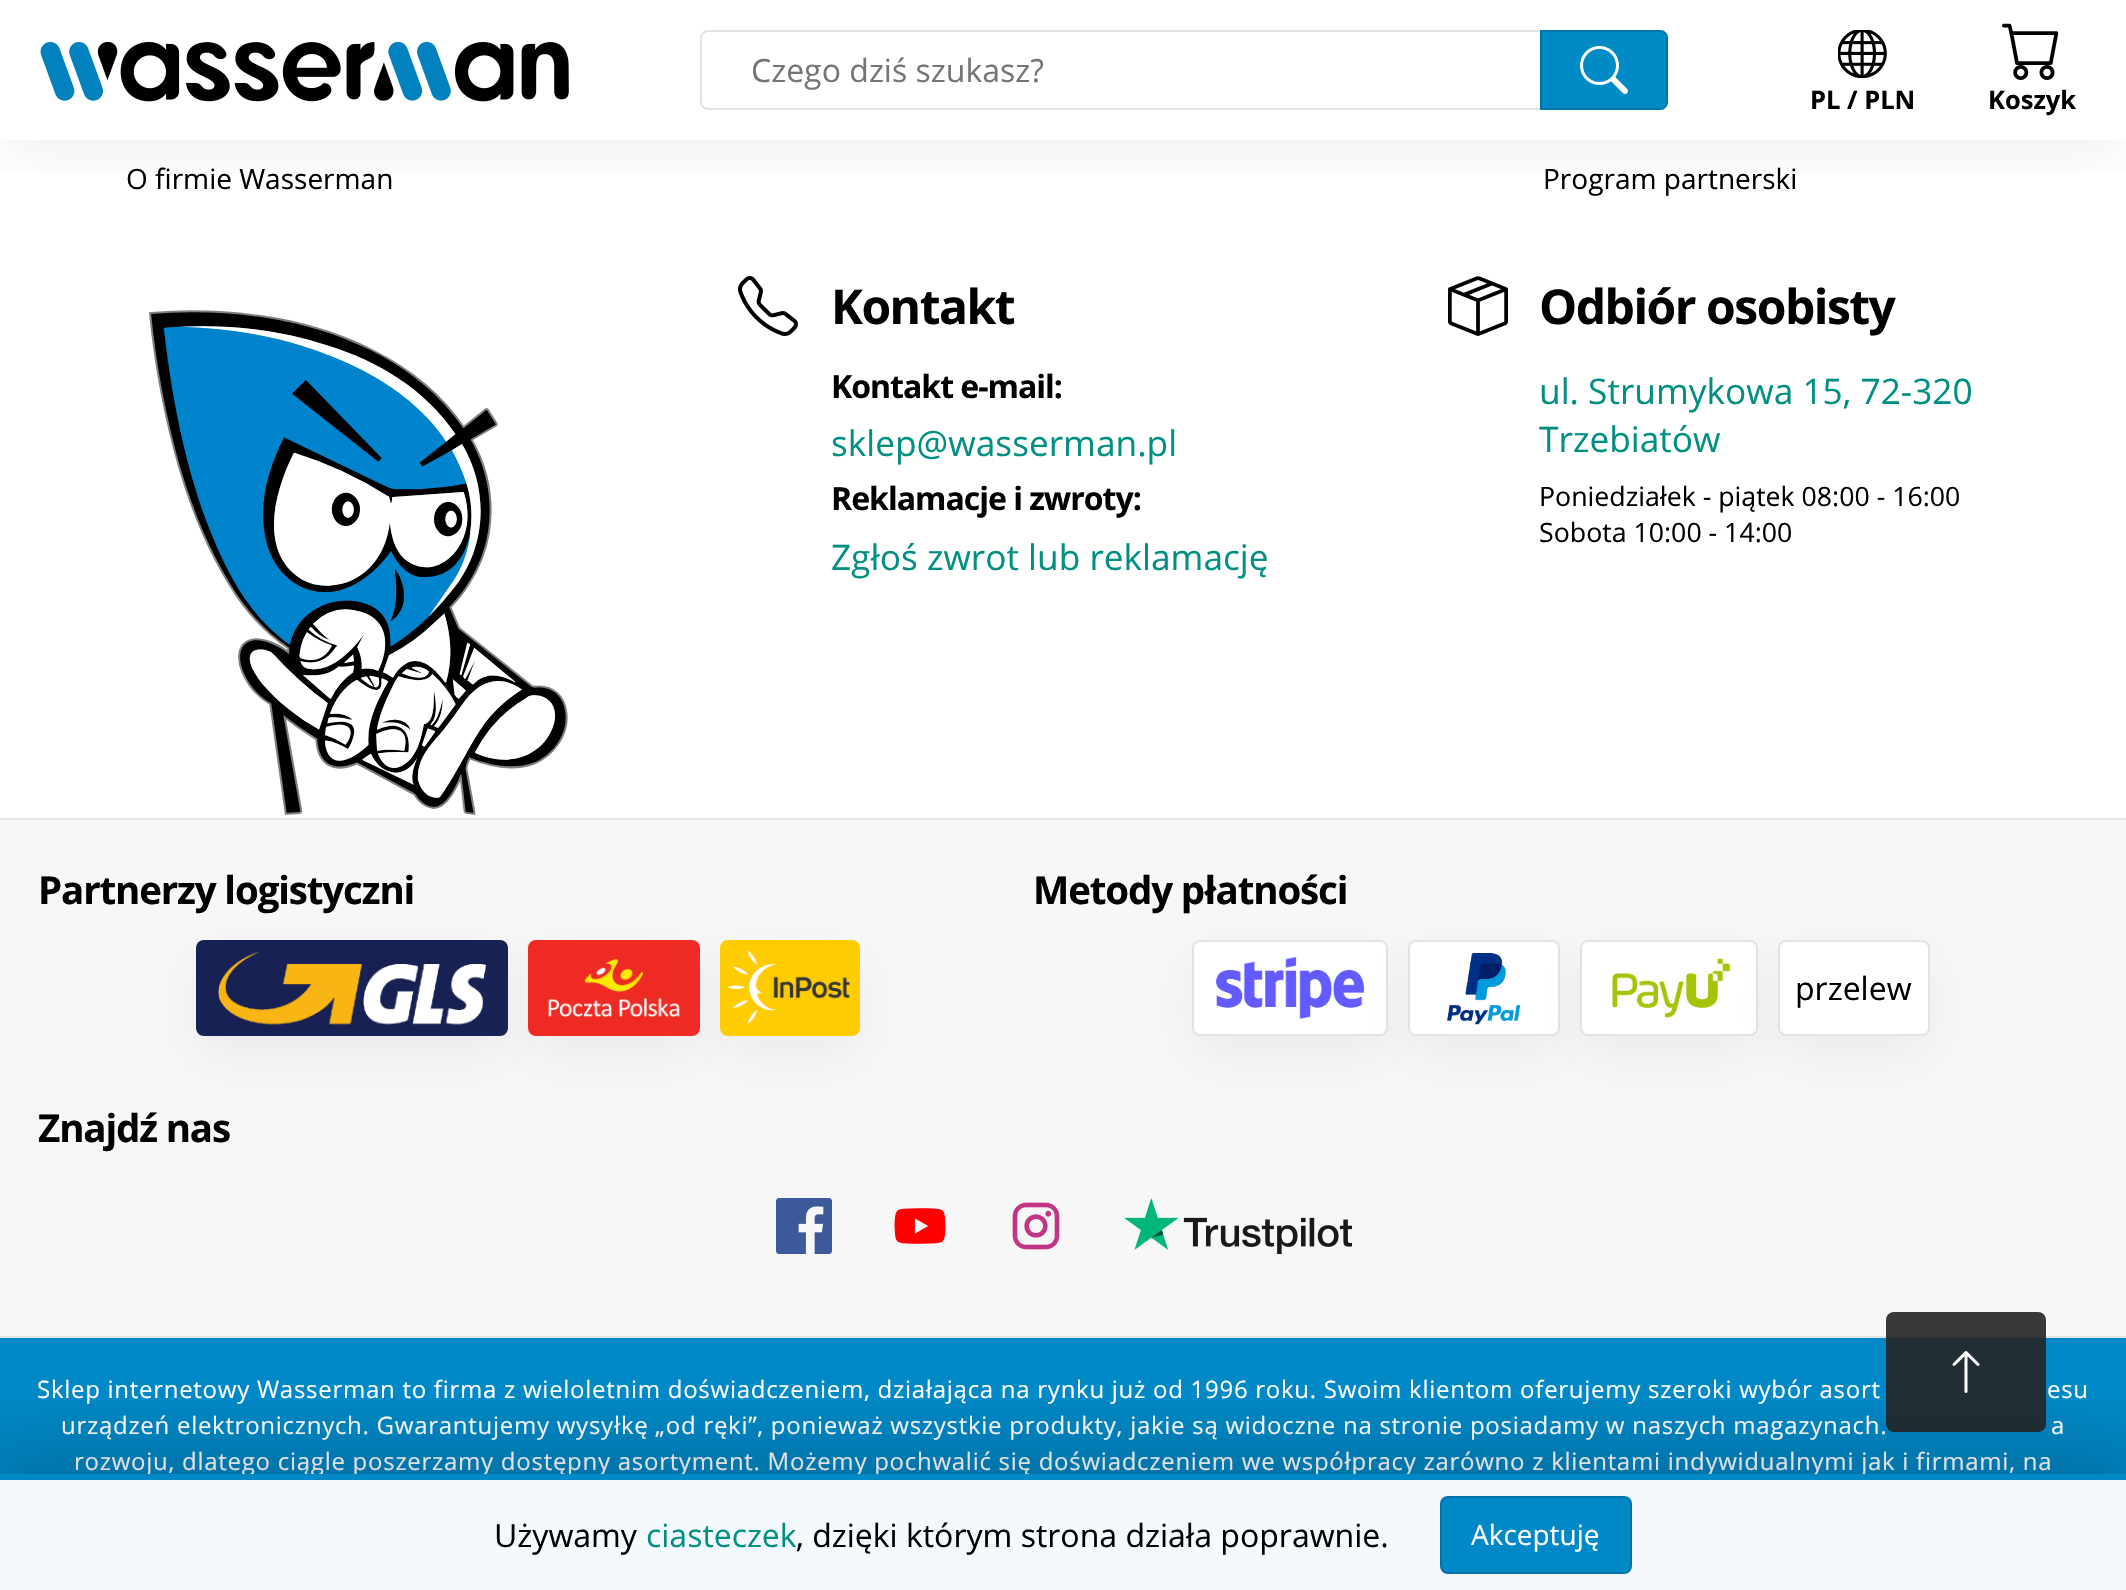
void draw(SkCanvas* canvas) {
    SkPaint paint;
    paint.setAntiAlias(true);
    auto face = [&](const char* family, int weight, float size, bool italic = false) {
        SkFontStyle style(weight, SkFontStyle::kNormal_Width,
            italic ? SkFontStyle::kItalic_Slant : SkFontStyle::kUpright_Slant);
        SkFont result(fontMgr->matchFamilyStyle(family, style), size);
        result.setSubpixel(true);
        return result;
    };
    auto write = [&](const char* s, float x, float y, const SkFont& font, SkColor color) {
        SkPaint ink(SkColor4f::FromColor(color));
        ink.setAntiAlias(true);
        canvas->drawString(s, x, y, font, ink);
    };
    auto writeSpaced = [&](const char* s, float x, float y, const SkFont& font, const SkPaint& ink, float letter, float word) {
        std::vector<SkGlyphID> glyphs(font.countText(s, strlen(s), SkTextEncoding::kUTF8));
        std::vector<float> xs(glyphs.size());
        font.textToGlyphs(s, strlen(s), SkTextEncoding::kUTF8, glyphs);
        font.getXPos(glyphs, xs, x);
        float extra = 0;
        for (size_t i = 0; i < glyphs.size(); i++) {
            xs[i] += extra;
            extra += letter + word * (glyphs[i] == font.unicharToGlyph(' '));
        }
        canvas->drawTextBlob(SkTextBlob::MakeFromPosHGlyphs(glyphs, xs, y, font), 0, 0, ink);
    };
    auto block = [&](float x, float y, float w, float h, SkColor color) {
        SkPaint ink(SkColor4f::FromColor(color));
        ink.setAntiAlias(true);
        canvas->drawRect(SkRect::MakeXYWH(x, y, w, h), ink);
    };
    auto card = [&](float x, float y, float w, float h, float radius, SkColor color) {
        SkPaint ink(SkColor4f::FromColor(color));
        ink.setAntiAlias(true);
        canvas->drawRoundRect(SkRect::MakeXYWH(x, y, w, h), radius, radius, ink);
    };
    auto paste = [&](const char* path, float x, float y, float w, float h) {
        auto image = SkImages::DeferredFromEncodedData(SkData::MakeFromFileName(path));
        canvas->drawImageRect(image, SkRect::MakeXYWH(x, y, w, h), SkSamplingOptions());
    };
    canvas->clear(SK_ColorWHITE);
    canvas->save();
    canvas->clipRect(SkRect::MakeXYWH(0, 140, 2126, 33));
    paint.setColor(SkColorSetARGB(20, 72, 72, 72));
    paint.setMaskFilter(SkMaskFilter::MakeBlur(kNormal_SkBlurStyle, 25.5f));
    canvas->drawRect(SkRect::MakeXYWH(4, 22, 2118, 134), paint);
    paint.setMaskFilter(nullptr);
    canvas->restore();
    paste("pic1.png", 40, 41, 529, 61);
    paint.setStyle(SkPaint::kStroke_Style);
    paint.setStrokeWidth(2);
    paint.setColor(SkColorSetRGB(227, 227, 227));
    canvas->drawRoundRect(SkRect::MakeXYWH(701, 31, 966, 78), 7, 7, paint);
    auto kFont1 = face("Open Sans", 400, 32);
    write("Czego dziś szukasz?", 751, 82, kFont1, SkColorSetRGB(117, 117, 117));
    paint.setStyle(SkPaint::kFill_Style);
    paint.setColor(SkColorSetRGB(1, 139, 198));
    canvas->drawPath(SkPathBuilder().moveTo(1540, 30).lineTo(1660, 30).cubicTo(1664.5f, 30, 1668, 33.5f, 1668, 38).lineTo(1668, 102).cubicTo(1668, 106.5f, 1664.5f, 110, 1660, 110).lineTo(1540, 110).close().detach(), paint);
    paint.setStyle(SkPaint::kStroke_Style);
    paint.setColor(SkColorSetARGB(38, 0, 0, 0));
    canvas->drawPath(SkPathBuilder().moveTo(1541, 31).lineTo(1660, 31).cubicTo(1664, 31, 1667, 34, 1667, 38).lineTo(1667, 102).cubicTo(1667, 106, 1664, 109, 1660, 109).lineTo(1541, 109).close().detach(), paint);
    paste("pic2.png", 1580, 46, 48, 48);
    paste("pic3.png", 1838, 30, 49, 48);
    auto kFont2 = face("Open Sans", 700, 25.5f);
    write("PL / PLN", 1810, 109, kFont2, SK_ColorBLACK);
    paste("pic4.png", 2002, 23, 57, 57);
    write("Koszyk", 1988, 109, kFont2, SK_ColorBLACK);
    auto kFont3 = face("Open Sans", 400, 28);
    write("O firmie Wasserman", 126, 189, kFont3, SK_ColorBLACK);
    write("Program partnerski", 1543, 189, kFont3, SK_ColorBLACK);
    paste("pic5.png", 149, 310, 419, 505);
    paste("pic6.png", 738, 276, 60, 60);
    auto kFont4 = face("Open Sans", 700, 48);
    paint.setStyle(SkPaint::kFill_Style);
    paint.setColor(SK_ColorBLACK);
    writeSpaced("Kontakt", 831, 324, kFont4, paint, -1.5f, 0);
    auto kFont5 = face("Open Sans", 700, 32);
    writeSpaced("Kontakt e-mail:", 831, 398, kFont5, paint, -1, 0);
    auto kFont6 = face("Open Sans", 400, 35.25f);
    write("sklep@wasserman.pl", 831, 456, kFont6, SkColorSetRGB(0, 143, 129));
    writeSpaced("Reklamacje i zwroty:", 831, 510, kFont5, paint, -1, 0);
    write("Zgłoś zwrot lub reklamację", 831, 570, kFont6, SkColorSetRGB(0, 143, 129));
    paste("pic7.png", 1448, 276, 60, 60);
    writeSpaced("Odbiór osobisty", 1539, 324, kFont4, paint, -1.5f, 0);
    write("ul. Strumykowa 15, 72-320", 1539, 404, kFont6, SkColorSetRGB(0, 143, 129));
    write("Trzebiatów", 1539, 452, kFont6, SkColorSetRGB(0, 143, 129));
    auto kFont7 = face("Open Sans", 400, 26.7f);
    write("Poniedziałek - piątek 08:00 - 16:00", 1539, 506, kFont7, SK_ColorBLACK);
    write("Sobota 10:00 - 14:00", 1539, 542, kFont7, SK_ColorBLACK);
    block(0, 820, 2126, 516, SkColorSetRGB(247, 247, 247));
    block(0, 818, 2126, 2, SkColorSetRGB(227, 227, 227));
    block(0, 1336, 2126, 2, SkColorSetRGB(227, 227, 227));
    auto kFont8 = face("Open Sans", 700, 38.5f);
    writeSpaced("Partnerzy logistyczni", 38, 904, kFont8, paint, -1.15f, 0);
    paint.setColor(SkColorSetARGB(20, 72, 72, 72));
    paint.setMaskFilter(SkMaskFilter::MakeBlur(kNormal_SkBlurStyle, 25.5f));
    canvas->drawRoundRect(SkRect::MakeXYWH(200, 962, 304, 90), 5, 5, paint);
    paint.setMaskFilter(nullptr);
    card(196, 940, 312, 96, 8, SK_ColorWHITE);
    paste("pic8.png", 196, 940, 312, 96);
    paint.setMaskFilter(SkMaskFilter::MakeBlur(kNormal_SkBlurStyle, 25.5f));
    canvas->drawRoundRect(SkRect::MakeXYWH(532, 962, 164, 90), 5, 5, paint);
    paint.setMaskFilter(nullptr);
    card(528, 940, 172, 96, 8, SK_ColorWHITE);
    paste("pic9.png", 528, 940, 172, 96);
    paint.setMaskFilter(SkMaskFilter::MakeBlur(kNormal_SkBlurStyle, 25.5f));
    canvas->drawRoundRect(SkRect::MakeXYWH(724, 962, 132, 90), 5, 5, paint);
    paint.setMaskFilter(nullptr);
    card(720, 940, 140, 96, 8, SK_ColorWHITE);
    paste("pic10.png", 720, 940, 140, 96);
    paint.setColor(SK_ColorBLACK);
    writeSpaced("Metody płatności", 1033, 904, kFont8, paint, -1.15f, 0);
    paint.setColor(SkColorSetARGB(20, 72, 72, 72));
    paint.setMaskFilter(SkMaskFilter::MakeBlur(kNormal_SkBlurStyle, 25.5f));
    canvas->drawRoundRect(SkRect::MakeXYWH(1196, 962, 188, 90), 5, 5, paint);
    paint.setMaskFilter(nullptr);
    paint.setColor(SK_ColorWHITE);
    canvas->drawRoundRect(SkRect::MakeXYWH(1193, 941, 194, 94), 7, 7, paint);
    paint.setStyle(SkPaint::kStroke_Style);
    paint.setColor(SkColorSetRGB(227, 227, 227));
    canvas->drawRoundRect(SkRect::MakeXYWH(1193, 941, 194, 94), 7, 7, paint);
    paste("pic11.png", 1216, 956, 149, 64);
    paint.setStyle(SkPaint::kFill_Style);
    paint.setColor(SkColorSetARGB(20, 72, 72, 72));
    paint.setMaskFilter(SkMaskFilter::MakeBlur(kNormal_SkBlurStyle, 25.5f));
    canvas->drawRoundRect(SkRect::MakeXYWH(1412, 962, 144, 90), 5, 5, paint);
    paint.setMaskFilter(nullptr);
    paint.setStyle(SkPaint::kStroke_Style);
    paint.setColor(SkColorSetRGB(227, 227, 227));
    canvas->drawRoundRect(SkRect::MakeXYWH(1409, 941, 150, 94), 7, 7, paint);
    paste("pic12.png", 1410, 942, 148, 92);
    paint.setStyle(SkPaint::kFill_Style);
    paint.setColor(SkColorSetARGB(20, 72, 72, 72));
    paint.setMaskFilter(SkMaskFilter::MakeBlur(kNormal_SkBlurStyle, 25.5f));
    canvas->drawRoundRect(SkRect::MakeXYWH(1584, 962, 170, 90), 5, 5, paint);
    paint.setMaskFilter(nullptr);
    paint.setColor(SK_ColorWHITE);
    canvas->drawRoundRect(SkRect::MakeXYWH(1581, 941, 176, 94), 7, 7, paint);
    paint.setStyle(SkPaint::kStroke_Style);
    paint.setColor(SkColorSetRGB(227, 227, 227));
    canvas->drawRoundRect(SkRect::MakeXYWH(1581, 941, 176, 94), 7, 7, paint);
    paste("pic13.png", 1612, 958, 119, 60);
    paint.setStyle(SkPaint::kFill_Style);
    paint.setColor(SkColorSetARGB(20, 72, 72, 72));
    paint.setMaskFilter(SkMaskFilter::MakeBlur(kNormal_SkBlurStyle, 25.5f));
    canvas->drawRoundRect(SkRect::MakeXYWH(1782, 962, 144, 90), 5, 5, paint);
    paint.setMaskFilter(nullptr);
    paint.setColor(SK_ColorWHITE);
    canvas->drawRoundRect(SkRect::MakeXYWH(1779, 941, 150, 94), 7, 7, paint);
    paint.setStyle(SkPaint::kStroke_Style);
    paint.setColor(SkColorSetRGB(227, 227, 227));
    canvas->drawRoundRect(SkRect::MakeXYWH(1779, 941, 150, 94), 7, 7, paint);
    write("przelew", 1795, 1000, kFont1, SK_ColorBLACK);
    paint.setStyle(SkPaint::kFill_Style);
    paint.setColor(SK_ColorBLACK);
    writeSpaced("Znajdź nas", 38, 1142, kFont8, paint, -1.15f, 0);
    paste("pic14.png", 776, 1198, 56, 56);
    paste("pic15.png", 894, 1208, 52, 36);
    paste("pic16.png", 1012, 1202, 48, 48);
    paste("pic17.png", 1124, 1198, 228, 56);
    block(0, 1338, 2126, 252, SkColorSetRGB(1, 136, 198));
    auto kFont9 = face("Open Sans", 400, 24);
    paint.setColor(SK_ColorWHITE);
    writeSpaced("Sklep internetowy Wasserman to firma z wieloletnim doświadczeniem, działająca na rynku już od 1996 roku. Swoim klientom oferujemy szeroki wybór asort", 37, 1398, kFont9, paint, 0.72f, 0);
    writeSpaced("esu", 2047, 1398, kFont9, paint, 0.72f, 0);
    writeSpaced("urządzeń elektronicznych. Gwarantujemy wysyłkę „od ręki”, ponieważ wszystkie produkty, jakie są widoczne na stronie posiadamy w naszych magazynach.", 61, 1434, kFont9, paint, 0.72f, 0);
    writeSpaced("a", 2051, 1434, kFont9, paint, 0.72f, 0);
    writeSpaced("rozwoju, dlatego ciągle poszerzamy dostępny asortyment. Możemy pochwalić się doświadczeniem we współpracy zarówno z klientami indywidualnymi jak i firmami, na", 74, 1470, kFont9, paint, 0.72f, 0);
    card(1886, 1312, 160, 120, 8, SkColorSetARGB(230, 35, 35, 35));
    paste("pic18.png", 1952, 1351, 28, 42);
    canvas->save();
    canvas->clipRect(SkRect::MakeXYWH(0, 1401, 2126, 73));
    paint.setColor(SkColorSetARGB(51, 0, 0, 0));
    paint.setMaskFilter(SkMaskFilter::MakeBlur(kNormal_SkBlurStyle, 40));
    canvas->drawRect(SkRect::MakeXYWH(-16, 1452, 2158, 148), paint);
    paint.setMaskFilter(nullptr);
    canvas->restore();
    block(0, 1480, 2126, 110, SkColorSetARGB(242, 255, 255, 255));
    block(144, 1474, 1721, 2, SkColorSetRGB(1, 136, 198));
    write("Używamy", 494, 1547, kFont1, SK_ColorBLACK);
    write("ciasteczek", 646, 1547, kFont1, SkColorSetRGB(0, 143, 129));
    write(", dzięki którym strona działa poprawnie.", 796, 1547, kFont1, SK_ColorBLACK);
    card(1440, 1496, 192, 78, 8, SkColorSetRGB(1, 136, 198));
    paint.setStyle(SkPaint::kStroke_Style);
    paint.setColor(SkColorSetARGB(38, 0, 0, 0));
    canvas->drawRoundRect(SkRect::MakeXYWH(1441, 1497, 190, 76), 7, 7, paint);
    write("Akceptuję", 1471, 1545, kFont3, SK_ColorWHITE);
}
